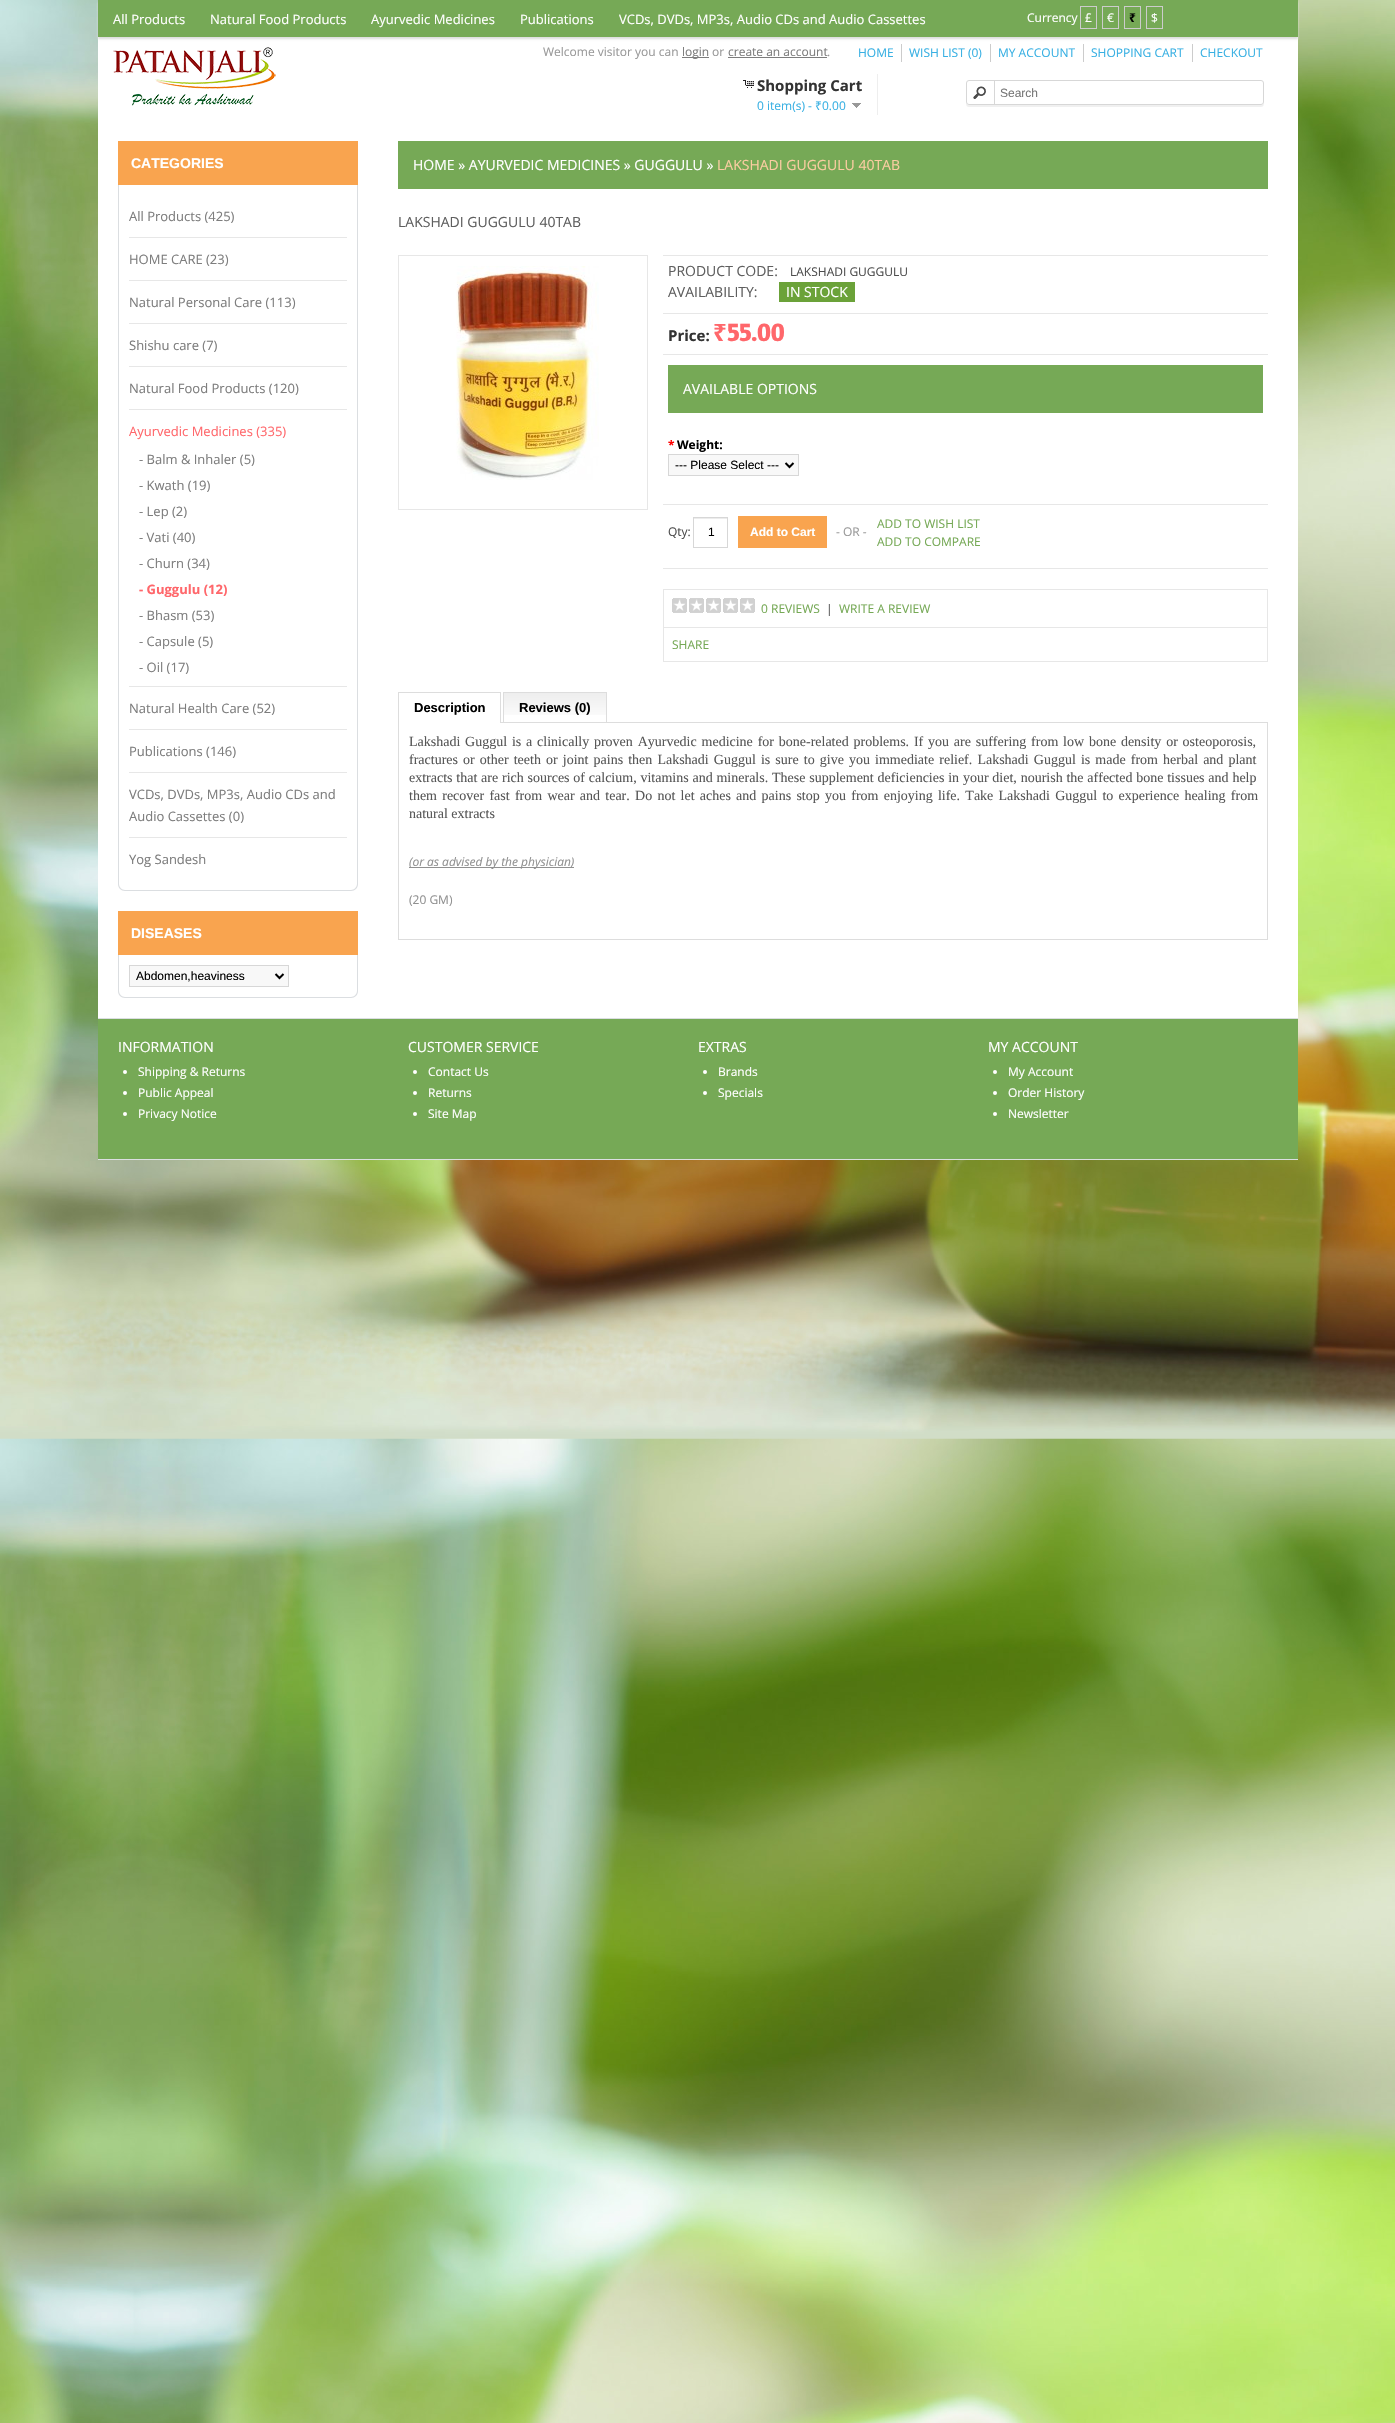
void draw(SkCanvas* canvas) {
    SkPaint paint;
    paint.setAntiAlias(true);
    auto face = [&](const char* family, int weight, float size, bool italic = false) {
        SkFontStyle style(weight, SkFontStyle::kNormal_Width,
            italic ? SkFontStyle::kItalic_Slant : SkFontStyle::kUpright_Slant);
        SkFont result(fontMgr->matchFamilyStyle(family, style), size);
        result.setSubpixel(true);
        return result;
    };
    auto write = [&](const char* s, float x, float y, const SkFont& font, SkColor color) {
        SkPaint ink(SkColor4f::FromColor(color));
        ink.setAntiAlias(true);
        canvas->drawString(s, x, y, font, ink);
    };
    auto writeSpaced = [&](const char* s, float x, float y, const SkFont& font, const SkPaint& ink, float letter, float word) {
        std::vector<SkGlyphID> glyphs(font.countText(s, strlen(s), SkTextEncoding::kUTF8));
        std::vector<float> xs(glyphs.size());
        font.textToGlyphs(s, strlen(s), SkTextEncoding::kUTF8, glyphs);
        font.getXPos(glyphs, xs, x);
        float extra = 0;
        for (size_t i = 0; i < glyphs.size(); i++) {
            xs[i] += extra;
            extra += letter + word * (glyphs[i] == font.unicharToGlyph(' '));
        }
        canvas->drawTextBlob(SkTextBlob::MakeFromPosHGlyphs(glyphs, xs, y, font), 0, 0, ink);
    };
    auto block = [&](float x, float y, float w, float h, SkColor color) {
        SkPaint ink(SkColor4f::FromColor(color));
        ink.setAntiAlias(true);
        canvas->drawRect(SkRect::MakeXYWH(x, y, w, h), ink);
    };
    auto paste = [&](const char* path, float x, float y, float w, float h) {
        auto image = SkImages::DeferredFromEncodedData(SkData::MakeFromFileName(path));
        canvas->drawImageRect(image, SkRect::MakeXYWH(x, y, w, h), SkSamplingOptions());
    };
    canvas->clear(SK_ColorWHITE);
    paste("pic1.png", 0, 0, 1395, 2423);
    block(98, 37, 1200, 981, SK_ColorWHITE);
    paint.setColor(SkColorSetRGB(221, 221, 221));
    paint.setMaskFilter(SkMaskFilter::MakeBlur(kNormal_SkBlurStyle, 1));
    canvas->drawRect(SkRect::MakeXYWH(98, 2, 1200, 37), paint);
    paint.setMaskFilter(nullptr);
    block(98, 0, 1200, 37, SkColorSetRGB(118, 169, 86));
    auto kFont1 = face("Open Sans", 400, 13);
    write("All Products", 113, 24, kFont1, SK_ColorWHITE);
    write("Natural Food Products", 210, 24, kFont1, SK_ColorWHITE);
    write("Ayurvedic Medicines", 371, 24, kFont1, SK_ColorWHITE);
    write("Publications", 520, 24, kFont1, SK_ColorWHITE);
    write("VCDs, DVDs, MP3s, Audio CDs and Audio Cassettes", 619, 24, kFont1, SK_ColorWHITE);
    auto kFont2 = face("Open Sans", 400, 12);
    write("Currency", 1027, 22, kFont2, SK_ColorWHITE);
    paint.setStyle(SkPaint::kStroke_Style);
    paint.setStrokeWidth(1);
    paint.setColor(SkColorSetRGB(204, 204, 204));
    canvas->drawRect(SkRect::MakeXYWH(1080.5f, 6.5f, 16, 22), paint);
    write("£", 1085, 22, kFont2, SK_ColorWHITE);
    canvas->drawRect(SkRect::MakeXYWH(1102.5f, 6.5f, 16, 22), paint);
    write("€", 1107, 22, kFont2, SK_ColorWHITE);
    canvas->drawRect(SkRect::MakeXYWH(1124.5f, 6.5f, 16, 22), paint);
    auto kFont3 = face("Noto Sans", 700, 12);
    write("₹", 1129, 22, kFont3, SK_ColorBLACK);
    canvas->drawRect(SkRect::MakeXYWH(1146.5f, 6.5f, 16, 22), paint);
    write("$", 1151, 22, kFont2, SK_ColorWHITE);
    paste("pic2.png", 113, 47, 163, 59);
    write("Welcome visitor you can", 543, 56, kFont2, SkColorSetRGB(153, 153, 153));
    block(682, 57, 27, 1, SkColorSetRGB(125, 125, 125));
    write("login", 682, 56, kFont2, SkColorSetRGB(125, 125, 125));
    write("or", 712, 56, kFont2, SkColorSetRGB(153, 153, 153));
    write("create an account", 728, 56, kFont2, SkColorSetRGB(125, 125, 125));
    block(728, 57, 99, 1, SkColorSetRGB(125, 125, 125));
    write(".", 827, 56, kFont2, SkColorSetRGB(153, 153, 153));
    write("HOME", 858, 57, kFont2, SkColorSetRGB(56, 176, 227));
    block(901, 44, 1, 18, SkColorSetRGB(204, 204, 204));
    write("WISH LIST (0)", 909, 57, kFont2, SkColorSetRGB(56, 176, 227));
    block(990, 44, 1, 18, SkColorSetRGB(204, 204, 204));
    write("MY ACCOUNT", 998, 57, kFont2, SkColorSetRGB(56, 176, 227));
    block(1083, 44, 1, 18, SkColorSetRGB(204, 204, 204));
    write("SHOPPING CART", 1091, 57, kFont2, SkColorSetRGB(56, 176, 227));
    block(1192, 44, 1, 18, SkColorSetRGB(204, 204, 204));
    write("CHECKOUT", 1200, 57, kFont2, SkColorSetRGB(56, 176, 227));
    block(877, 74, 1, 41, SkColorSetRGB(238, 238, 238));
    paste("pic3.png", 743, 80, 11, 8);
    auto kFont4 = face("Open Sans", 700, 15);
    write("Shopping Cart", 757, 91, kFont4, SkColorSetRGB(51, 51, 51));
    write("0 item(s) -", 757, 110, kFont2, SkColorSetRGB(56, 176, 227));
    auto kFont5 = face("Noto Sans", 400, 12);
    write("₹", 815, 110, kFont5, SkColorSetRGB(56, 176, 227));
    write("0.00", 822, 110, kFont2, SkColorSetRGB(56, 176, 227));
    paste("pic4.png", 852, 103, 9, 5);
    paint.setStyle(SkPaint::kFill_Style);
    paint.setColor(SkColorSetRGB(240, 240, 240));
    canvas->drawPath(SkPathBuilder().moveTo(966, 102).cubicTo(966, 104, 966, 107, 969, 107).lineTo(1261, 107).cubicTo(1264, 107, 1264, 104, 1264, 102).cubicTo(1264, 104, 1263, 105, 1261, 105).lineTo(969, 105).cubicTo(967, 105, 966, 104, 966, 102).close().detach(), paint);
    paint.setStyle(SkPaint::kStroke_Style);
    paint.setColor(SkColorSetRGB(215, 215, 215));
    canvas->drawRoundRect(SkRect::MakeXYWH(966.5f, 80.5f, 297, 24), 2.5f, 2.5f, paint);
    paste("pic5.png", 973, 86, 13, 13);
    block(994, 80, 1, 24, SkColorSetRGB(215, 215, 215));
    auto kFont6 = face("Liberation Sans", 400, 12);
    write("Search", 1000, 97, kFont6, SkColorSetRGB(117, 117, 117));
    block(118, 141, 240, 44, SkColorSetRGB(249, 164, 79));
    auto kFont7 = face("Liberation Sans", 700, 14);
    write("CATEGORIES", 131, 168, kFont7, SK_ColorWHITE);
    paint.setStyle(SkPaint::kFill_Style);
    paint.setColor(SkColorSetRGB(219, 222, 225));
    canvas->drawPath(SkPathBuilder(SkPathFillType::kEvenOdd).moveTo(118, 185).lineTo(358, 185).lineTo(358, 884).cubicTo(358, 888, 355, 891, 351, 891).lineTo(125, 891).cubicTo(121, 891, 118, 888, 118, 884).close().moveTo(119, 185).lineTo(357, 185).lineTo(357, 884).cubicTo(357, 887, 354, 890, 351, 890).lineTo(125, 890).cubicTo(122, 890, 119, 887, 119, 884).close().detach(), paint);
    write("All Products (425)", 129, 221, kFont1, SkColorSetRGB(125, 125, 125));
    block(129, 237, 218, 1, SkColorSetRGB(231, 231, 231));
    write("HOME CARE (23)", 129, 264, kFont1, SkColorSetRGB(125, 125, 125));
    block(129, 280, 218, 1, SkColorSetRGB(231, 231, 231));
    write("Natural Personal Care (113)", 129, 307, kFont1, SkColorSetRGB(125, 125, 125));
    block(129, 323, 218, 1, SkColorSetRGB(231, 231, 231));
    write("Shishu care (7)", 129, 350, kFont1, SkColorSetRGB(125, 125, 125));
    block(129, 366, 218, 1, SkColorSetRGB(231, 231, 231));
    write("Natural Food Products (120)", 129, 393, kFont1, SkColorSetRGB(125, 125, 125));
    block(129, 409, 218, 1, SkColorSetRGB(231, 231, 231));
    write("Ayurvedic Medicines (335)", 129, 436, kFont1, SkColorSetRGB(255, 103, 107));
    write("- Balm & Inhaler (5)", 139, 464, kFont1, SkColorSetRGB(125, 125, 125));
    write("- Kwath (19)", 139, 490, kFont1, SkColorSetRGB(125, 125, 125));
    write("- Lep (2)", 139, 516, kFont1, SkColorSetRGB(125, 125, 125));
    write("- Vati (40)", 139, 542, kFont1, SkColorSetRGB(125, 125, 125));
    write("- Churn (34)", 139, 568, kFont1, SkColorSetRGB(125, 125, 125));
    auto kFont8 = face("Open Sans", 700, 13);
    write("- Guggulu (12)", 139, 594, kFont8, SkColorSetRGB(255, 103, 107));
    write("- Bhasm (53)", 139, 620, kFont1, SkColorSetRGB(125, 125, 125));
    write("- Capsule (5)", 139, 646, kFont1, SkColorSetRGB(125, 125, 125));
    write("- Oil (17)", 139, 672, kFont1, SkColorSetRGB(125, 125, 125));
    block(129, 686, 218, 1, SkColorSetRGB(231, 231, 231));
    write("Natural Health Care (52)", 129, 713, kFont1, SkColorSetRGB(125, 125, 125));
    block(129, 729, 218, 1, SkColorSetRGB(231, 231, 231));
    write("Publications (146)", 129, 756, kFont1, SkColorSetRGB(125, 125, 125));
    block(129, 772, 218, 1, SkColorSetRGB(231, 231, 231));
    write("VCDs, DVDs, MP3s, Audio CDs and", 129, 799, kFont1, SkColorSetRGB(125, 125, 125));
    write("Audio Cassettes (0)", 129, 821, kFont1, SkColorSetRGB(125, 125, 125));
    block(129, 837, 218, 1, SkColorSetRGB(231, 231, 231));
    write("Yog Sandesh", 129, 864, kFont1, SkColorSetRGB(125, 125, 125));
    block(118, 911, 240, 44, SkColorSetRGB(249, 164, 79));
    write("DISEASES", 131, 938, kFont7, SK_ColorWHITE);
    canvas->drawPath(SkPathBuilder(SkPathFillType::kEvenOdd).moveTo(118, 955).lineTo(358, 955).lineTo(358, 991).cubicTo(358, 995, 355, 998, 351, 998).lineTo(125, 998).cubicTo(121, 998, 118, 995, 118, 991).close().moveTo(119, 955).lineTo(357, 955).lineTo(357, 991).cubicTo(357, 994, 354, 997, 351, 997).lineTo(125, 997).cubicTo(122, 997, 119, 994, 119, 991).close().detach(), paint);
    paint.setColor(SkColorSetRGB(248, 248, 248));
    canvas->drawRect(SkRect::MakeXYWH(129.5f, 965.5f, 159, 21), paint);
    paint.setStyle(SkPaint::kStroke_Style);
    paint.setColor(SkColorSetRGB(215, 215, 215));
    canvas->drawRect(SkRect::MakeXYWH(129.5f, 965.5f, 159, 21), paint);
    paint.setStrokeWidth(2);
    paint.setColor(SK_ColorBLACK);
    canvas->drawPath(SkPathBuilder().moveTo(275.5f, 974).lineTo(279.5f, 978).lineTo(283.5f, 974).detach(), paint);
    write("Abdomen,heaviness", 136, 980, kFont6, SK_ColorBLACK);
    block(398, 141, 870, 48, SkColorSetRGB(118, 169, 86));
    auto kFont9 = face("Open Sans", 400, 14);
    write("HOME » AYURVEDIC MEDICINES » GUGGULU »", 413, 170, kFont9, SK_ColorWHITE);
    write("LAKSHADI GUGGULU 40TAB", 717, 170, kFont9, SkColorSetRGB(250, 205, 161));
    write("LAKSHADI GUGGULU 40TAB", 398, 227, kFont9, SkColorSetRGB(95, 95, 95));
    paint.setStrokeWidth(1);
    paint.setColor(SkColorSetRGB(231, 231, 231));
    canvas->drawRect(SkRect::MakeXYWH(398.5f, 255.5f, 249, 254), paint);
    paste("pic6.png", 456, 266, 143, 214);
    block(663, 255, 605, 1, SkColorSetRGB(231, 231, 231));
    block(663, 313, 605, 1, SkColorSetRGB(231, 231, 231));
    write("PRODUCT CODE:", 668, 276, kFont9, SkColorSetRGB(95, 95, 95));
    write("LAKSHADI GUGGULU", 790, 276, kFont2, SkColorSetRGB(77, 77, 77));
    write("AVAILABILITY:", 668, 297, kFont9, SkColorSetRGB(95, 95, 95));
    block(779, 282, 76, 20, SkColorSetRGB(107, 162, 57));
    write("IN STOCK", 786, 297, kFont9, SK_ColorWHITE);
    block(663, 354, 605, 1, SkColorSetRGB(231, 231, 231));
    write("Price:", 668, 341, kFont4, SkColorSetRGB(51, 51, 51));
    canvas->save();
    canvas->clipRect(SkRect::MakeXYWH(663, 324, 605, 30));
    auto kFont10 = face("Noto Sans", 700, 24);
    write("₹", 713, 341, kFont10, SkColorSetRGB(255, 103, 107));
    canvas->restore();
    auto kFont11 = face("Patua One", 700, 24);
    write("55.00", 727, 341, kFont11, SkColorSetRGB(255, 103, 107));
    block(663, 504, 605, 1, SkColorSetRGB(231, 231, 231));
    block(668, 365, 595, 48, SkColorSetRGB(118, 169, 86));
    write("AVAILABLE OPTIONS", 683, 394, kFont9, SK_ColorWHITE);
    auto kFont12 = face("Open Sans", 700, 12);
    write("*", 668, 449, kFont12, SkColorSetRGB(255, 0, 0));
    write("Weight:", 677, 449, kFont12, SK_ColorBLACK);
    paint.setStyle(SkPaint::kFill_Style);
    paint.setColor(SkColorSetRGB(248, 248, 248));
    canvas->drawRect(SkRect::MakeXYWH(668.5f, 454.5f, 130, 21), paint);
    paint.setStyle(SkPaint::kStroke_Style);
    paint.setColor(SkColorSetRGB(215, 215, 215));
    canvas->drawRect(SkRect::MakeXYWH(668.5f, 454.5f, 130, 21), paint);
    paint.setStrokeWidth(2);
    paint.setColor(SK_ColorBLACK);
    canvas->drawPath(SkPathBuilder().moveTo(785.5f, 463).lineTo(789.5f, 467).lineTo(793.5f, 463).detach(), paint);
    write("--- Please Select ---", 675, 469, kFont6, SK_ColorBLACK);
    block(663, 568, 605, 1, SkColorSetRGB(231, 231, 231));
    write("Qty:", 668, 536, kFont2, SkColorSetRGB(77, 77, 77));
    block(694, 518, 33, 1, SkColorSetRGB(236, 236, 236));
    paint.setStrokeWidth(1);
    paint.setColor(SkColorSetRGB(215, 215, 215));
    canvas->drawRect(SkRect::MakeXYWH(693.5f, 517.5f, 34, 30), paint);
    write("1", 708, 536, kFont6, SK_ColorBLACK);
    block(738, 516, 89, 32, SkColorSetRGB(249, 164, 79));
    auto kFont13 = face("Liberation Sans", 700, 12);
    write("Add to Cart", 750, 536, kFont13, SK_ColorWHITE);
    write("- OR -", 836, 536, kFont2, SkColorSetRGB(153, 153, 153));
    write("ADD TO WISH LIST", 877, 528, kFont2, SkColorSetRGB(118, 169, 86));
    write("ADD TO COMPARE", 877, 546, kFont2, SkColorSetRGB(118, 169, 86));
    block(663, 589, 605, 1, SkColorSetRGB(231, 231, 231));
    block(1267, 589, 1, 73, SkColorSetRGB(231, 231, 231));
    block(663, 589, 1, 73, SkColorSetRGB(231, 231, 231));
    block(664, 627, 603, 1, SkColorSetRGB(231, 231, 231));
    paste("pic7.png", 672, 598, 83, 15);
    write("0 REVIEWS", 761, 613, kFont2, SkColorSetRGB(118, 169, 86));
    write("|", 826, 613, kFont2, SkColorSetRGB(77, 77, 77));
    write("WRITE A REVIEW", 839, 613, kFont2, SkColorSetRGB(118, 169, 86));
    block(664, 661, 603, 1, SkColorSetRGB(231, 231, 231));
    write("SHARE", 672, 649, kFont2, SkColorSetRGB(118, 169, 86));
    block(501, 722, 767, 1, SkColorSetRGB(221, 221, 221));
    block(398, 692, 103, 1, SkColorSetRGB(221, 221, 221));
    block(500, 692, 1, 31, SkColorSetRGB(221, 221, 221));
    block(398, 692, 1, 31, SkColorSetRGB(221, 221, 221));
    auto kFont14 = face("Liberation Sans", 700, 13);
    write("Description", 414, 712, kFont14, SK_ColorBLACK);
    paste("pic8.png", 504, 693, 102, 22);
    block(503, 692, 104, 1, SkColorSetRGB(221, 221, 221));
    block(606, 692, 1, 30, SkColorSetRGB(221, 221, 221));
    block(503, 692, 1, 30, SkColorSetRGB(221, 221, 221));
    write("Reviews (0)", 519, 712, kFont14, SK_ColorBLACK);
    block(1267, 723, 1, 217, SkColorSetRGB(221, 221, 221));
    block(398, 939, 870, 1, SkColorSetRGB(221, 221, 221));
    block(398, 723, 1, 217, SkColorSetRGB(221, 221, 221));
    auto kFont15 = face("Liberation Serif", 400, 14);
    paint.setStyle(SkPaint::kFill_Style);
    paint.setColor(SkColorSetRGB(86, 86, 86));
    writeSpaced("Lakshadi Guggul is a clinically proven Ayurvedic medicine for bone-related problems. If you are suffering from low bone density or osteoporosis,", 409, 746, kFont15, paint, 0, 1.3f);
    writeSpaced("fractures or other teeth or joint pains then Lakshadi Guggul is sure to give you immediate relief. Lakshadi Guggul is made from herbal and plant", 409, 764, kFont15, paint, 0, 1.6f);
    writeSpaced("extracts that are rich sources of calcium, vitamins and minerals. These supplement deficiencies in your diet, nourish the affected bone tissues and help", 409, 782, kFont15, paint, 0, 0.3f);
    writeSpaced("them recover fast from wear and tear. Do not let aches and pains stop you from enjoying life. Take Lakshadi Guggul to experience healing from", 409, 800, kFont15, paint, 0, 1.75f);
    write("natural extracts", 409, 818, kFont15, SkColorSetRGB(86, 86, 86));
    block(409, 867, 165, 1, SkColorSetRGB(144, 144, 144));
    auto kFont16 = face("Open Sans", 400, 12, true);
    write("(or as advised by the physician)", 409, 866, kFont16, SkColorSetRGB(144, 144, 144));
    write("(20 GM)", 409, 904, kFont2, SkColorSetRGB(144, 144, 144));
    block(98, 1019, 1200, 140, SkColorSetRGB(118, 169, 86));
    block(98, 1018, 1200, 1, SkColorSetRGB(219, 222, 225));
    block(98, 1159, 1200, 1, SkColorSetRGB(219, 222, 225));
    write("INFORMATION", 118, 1052, kFont9, SK_ColorWHITE);
    paint.setColor(SK_ColorWHITE);
    canvas->drawCircle(125, 1072, 2, paint);
    write("Shipping & Returns", 138, 1076, kFont2, SK_ColorWHITE);
    canvas->drawCircle(125, 1093, 2, paint);
    write("Public Appeal", 138, 1097, kFont2, SK_ColorWHITE);
    canvas->drawCircle(125, 1114, 2, paint);
    write("Privacy Notice", 138, 1118, kFont2, SK_ColorWHITE);
    write("CUSTOMER SERVICE", 408, 1052, kFont9, SK_ColorWHITE);
    canvas->drawCircle(415, 1072, 2, paint);
    write("Contact Us", 428, 1076, kFont2, SK_ColorWHITE);
    canvas->drawCircle(415, 1093, 2, paint);
    write("Returns", 428, 1097, kFont2, SK_ColorWHITE);
    canvas->drawCircle(415, 1114, 2, paint);
    write("Site Map", 428, 1118, kFont2, SK_ColorWHITE);
    write("EXTRAS", 698, 1052, kFont9, SK_ColorWHITE);
    canvas->drawCircle(705, 1072, 2, paint);
    write("Brands", 718, 1076, kFont2, SK_ColorWHITE);
    canvas->drawCircle(705, 1093, 2, paint);
    write("Specials", 718, 1097, kFont2, SK_ColorWHITE);
    write("MY ACCOUNT", 988, 1052, kFont9, SK_ColorWHITE);
    canvas->drawCircle(995, 1072, 2, paint);
    write("My Account", 1008, 1076, kFont2, SK_ColorWHITE);
    canvas->drawCircle(995, 1093, 2, paint);
    write("Order History", 1008, 1097, kFont2, SK_ColorWHITE);
    canvas->drawCircle(995, 1114, 2, paint);
    write("Newsletter", 1008, 1118, kFont2, SK_ColorWHITE);
}
